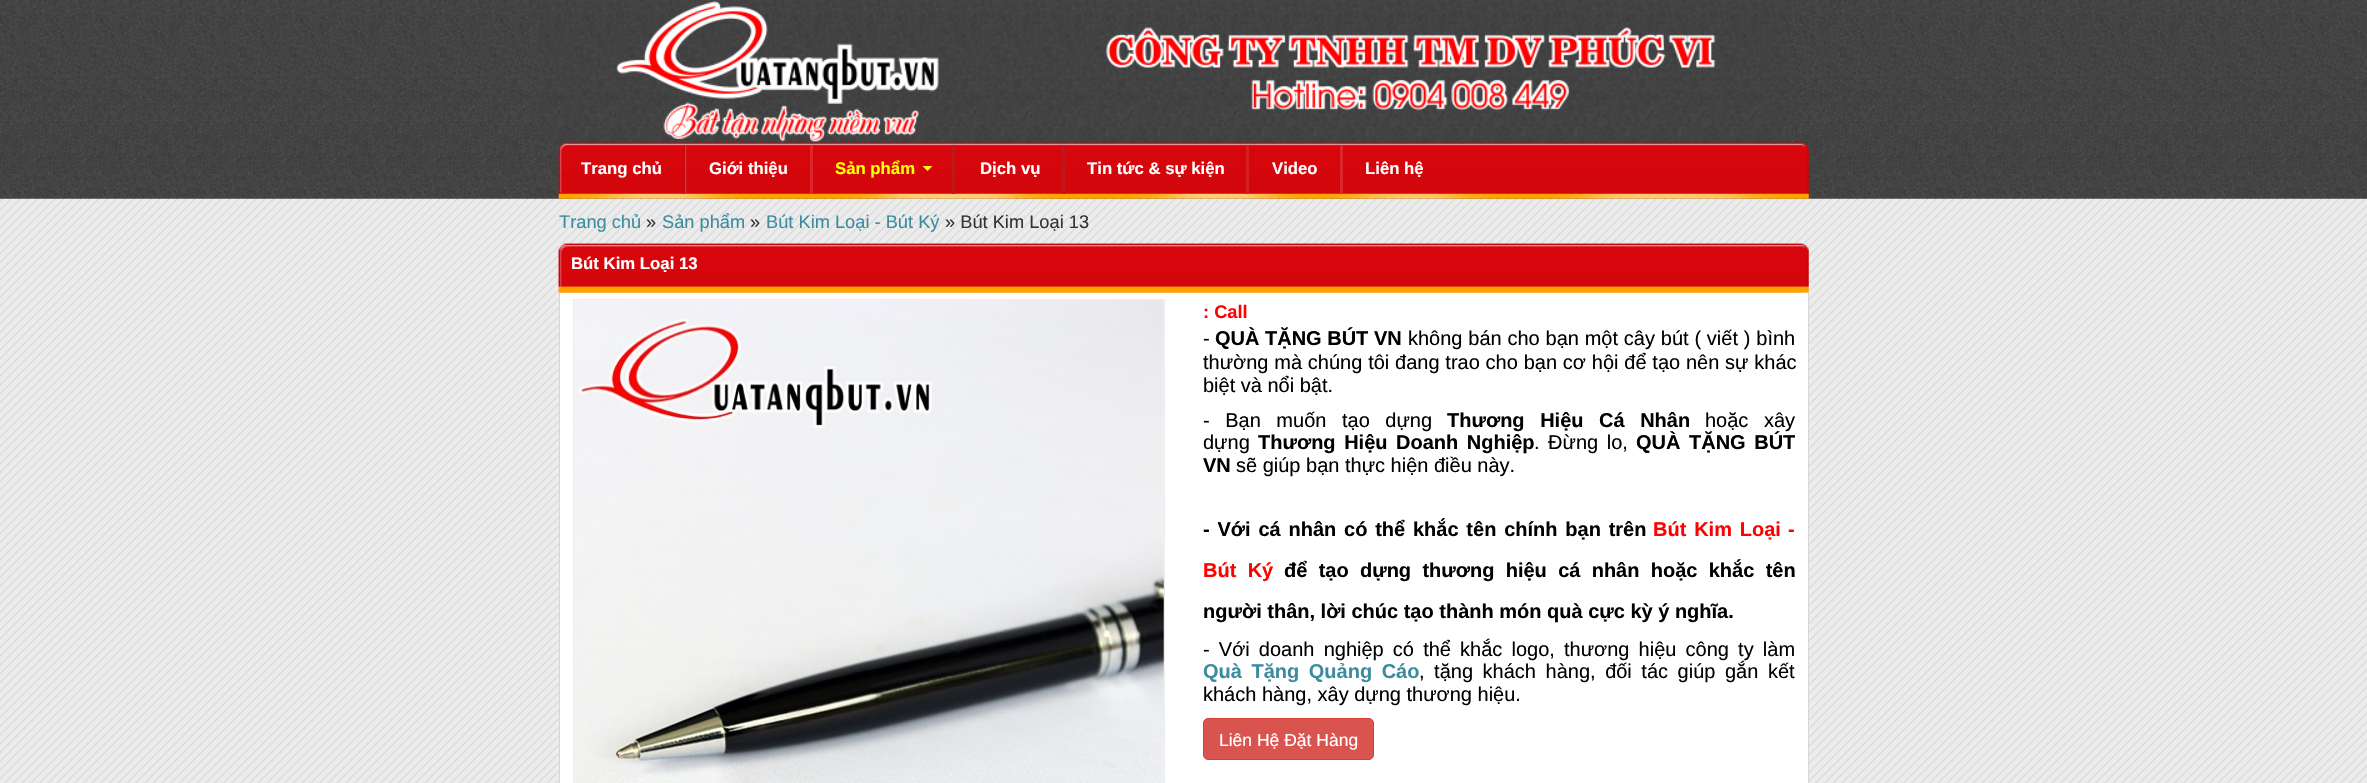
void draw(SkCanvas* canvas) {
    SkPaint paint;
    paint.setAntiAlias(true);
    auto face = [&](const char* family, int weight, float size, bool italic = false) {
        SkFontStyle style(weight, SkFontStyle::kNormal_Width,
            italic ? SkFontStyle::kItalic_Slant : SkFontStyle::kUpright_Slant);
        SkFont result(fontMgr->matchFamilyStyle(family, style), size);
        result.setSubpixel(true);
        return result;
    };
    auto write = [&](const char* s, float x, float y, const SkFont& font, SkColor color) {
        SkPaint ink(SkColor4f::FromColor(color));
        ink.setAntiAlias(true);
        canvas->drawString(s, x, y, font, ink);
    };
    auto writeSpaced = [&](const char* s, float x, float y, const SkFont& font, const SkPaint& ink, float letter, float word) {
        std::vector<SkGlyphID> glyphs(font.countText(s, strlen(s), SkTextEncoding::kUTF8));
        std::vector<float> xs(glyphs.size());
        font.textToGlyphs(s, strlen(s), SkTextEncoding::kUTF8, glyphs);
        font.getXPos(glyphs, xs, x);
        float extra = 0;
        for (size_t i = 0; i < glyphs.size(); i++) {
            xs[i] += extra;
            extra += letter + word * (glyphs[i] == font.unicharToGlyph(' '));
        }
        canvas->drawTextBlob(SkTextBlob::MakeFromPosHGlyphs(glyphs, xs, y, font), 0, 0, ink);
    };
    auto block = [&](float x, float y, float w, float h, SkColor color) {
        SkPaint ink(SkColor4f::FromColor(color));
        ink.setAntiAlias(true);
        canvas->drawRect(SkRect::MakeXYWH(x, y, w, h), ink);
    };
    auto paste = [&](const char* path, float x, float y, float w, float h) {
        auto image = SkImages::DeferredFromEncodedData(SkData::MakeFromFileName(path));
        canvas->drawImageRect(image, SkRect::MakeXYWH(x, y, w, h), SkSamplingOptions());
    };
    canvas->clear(SK_ColorWHITE);
    paste("pic1.png", 0, 198, 2367, 585);
    paste("pic2.png", 0, 0, 2367, 199);
    paste("pic4.png", 558, 142, 1251, 57);
    paste("pic3.png", 540, 0, 1250, 143);
    paste("pic5.png", 683, 145, 4, 49);
    auto kFont1 = face("Liberation Sans", 700, 16.75f);
    write("Trang chủ", 581, 174, kFont1, SK_ColorWHITE);
    block(810, 145, 3, 49, SkColorSetRGB(221, 38, 44));
    write("Giới thiệu", 709, 174, kFont1, SK_ColorWHITE);
    block(952, 145, 3, 49, SkColorSetRGB(192, 23, 27));
    write("Sản phẩm", 835, 174, kFont1, SkColorSetRGB(255, 255, 3));
    paint.setColor(SkColorSetRGB(255, 255, 3));
    canvas->drawPath(SkPathBuilder().moveTo(922.5f, 166).lineTo(932.5f, 166).lineTo(927.5f, 171).close().detach(), paint);
    block(1062, 145, 3, 49, SkColorSetRGB(192, 23, 27));
    write("Dịch vụ", 980, 174, kFont1, SK_ColorWHITE);
    block(1246, 145, 3, 49, SkColorSetRGB(209, 32, 37));
    write("Tin tức & sự kiện", 1087, 174, kFont1, SK_ColorWHITE);
    block(1340, 145, 3, 49, SkColorSetRGB(221, 38, 44));
    write("Video", 1272, 174, kFont1, SK_ColorWHITE);
    write("Liên hệ", 1365, 174, kFont1, SK_ColorWHITE);
    auto kFont2 = face("Liberation Sans", 400, 18.25f);
    write("Trang chủ", 559, 228, kFont2, SkColorSetRGB(59, 140, 159));
    write("»", 646, 228, kFont2, SkColorSetRGB(51, 51, 51));
    write("Sản phẩm", 662, 228, kFont2, SkColorSetRGB(59, 140, 159));
    write("»", 750, 228, kFont2, SkColorSetRGB(51, 51, 51));
    write("Bút Kim Loại - Bút Ký", 766, 228, kFont2, SkColorSetRGB(59, 140, 159));
    write("» Bút Kim Loại 13", 945, 228, kFont2, SkColorSetRGB(51, 51, 51));
    paste("pic6.png", 558, 243, 1251, 50);
    paste("pic7.png", 558, 243, 1245, 50);
    write("Bút Kim Loại 13", 571, 269, kFont1, SK_ColorWHITE);
    block(560, 293, 1248, 490, SK_ColorWHITE);
    block(1808, 293, 1, 490, SkColorSetRGB(214, 214, 214));
    block(559, 293, 1, 490, SkColorSetRGB(214, 214, 214));
    paint.setStyle(SkPaint::kStroke_Style);
    paint.setStrokeWidth(1);
    paint.setColor(SkColorSetRGB(236, 236, 236));
    canvas->drawRect(SkRect::MakeXYWH(573.5f, 299.5f, 591, 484), paint);
    paste("pic8.png", 574, 300, 590, 483);
    auto kFont3 = face("Liberation Sans", 700, 18.25f);
    write(": Call", 1203, 318, kFont3, SkColorSetRGB(255, 0, 0));
    auto kFont4 = face("Liberation Sans", 400, 20);
    write("-", 1203, 345, kFont4, SK_ColorBLACK);
    auto kFont5 = face("Liberation Sans", 700, 20);
    write("QUÀ", 1215, 345, kFont5, SK_ColorBLACK);
    write("TẶNG BÚT", 1265, 345, kFont5, SK_ColorBLACK);
    write("VN", 1374, 345, kFont5, SK_ColorBLACK);
    paint.setStyle(SkPaint::kFill_Style);
    paint.setColor(SK_ColorBLACK);
    writeSpaced("không bán cho bạn một cây bút ( viết ) bình", 1408, 345, kFont4, paint, 0, 0.25f);
    writeSpaced("thường mà chúng tôi đang trao cho bạn cơ hội để tạo nên sự khác", 1203, 369, kFont4, paint, 0, 0.25f);
    write("biệt và nổi bật.", 1203, 392, kFont4, SK_ColorBLACK);
    writeSpaced("- Bạn muốn tạo dựng", 1203, 427, kFont4, paint, 0, 10);
    writeSpaced("Thương Hiệu Cá Nhân", 1447, 427, kFont5, paint, 0, 10);
    writeSpaced("hoặc xây", 1705, 427, kFont4, paint, 0, 10);
    write("dựng", 1203, 449, kFont4, SK_ColorBLACK);
    writeSpaced("Thương Hiệu Doanh Nghiệp", 1258, 449, kFont5, paint, 0, 3);
    writeSpaced(". Đừng lo,", 1534, 449, kFont4, paint, 0, 3);
    writeSpaced("QUÀ TẶNG BÚT", 1636, 449, kFont5, paint, 0, 3);
    write("VN", 1203, 472, kFont5, SK_ColorBLACK);
    write("sẽ giúp bạn thực hiện điều này.", 1236, 472, kFont4, SK_ColorBLACK);
    writeSpaced("- Với cá nhân có thể khắc tên chính bạn trên", 1203, 536, kFont5, paint, 0, 2.25f);
    paint.setColor(SkColorSetRGB(255, 0, 0));
    writeSpaced("Bút Kim Loại", 1653, 536, kFont5, paint, 0, 2.25f);
    write("-", 1788, 536, kFont5, SkColorSetRGB(255, 0, 0));
    writeSpaced("Bút Ký", 1203, 577, kFont5, paint, 0, 5.75f);
    paint.setColor(SK_ColorBLACK);
    writeSpaced("để tạo dựng thương hiệu cá nhân hoặc khắc tên", 1284, 577, kFont5, paint, 0, 5.75f);
    write("người thân, lời chúc tạo thành món quà cực kỳ ý nghĩa.", 1203, 618, kFont5, SK_ColorBLACK);
    writeSpaced("- Với doanh nghiệp có thể khắc logo, thương hiệu công ty làm", 1203, 656, kFont4, paint, 0, 3.6f);
    paint.setColor(SkColorSetRGB(59, 140, 159));
    writeSpaced("Quà Tặng Quảng Cáo", 1203, 678, kFont5, paint, 0, 4);
    paint.setColor(SK_ColorBLACK);
    writeSpaced(", tặng khách hàng, đối tác giúp gắn kết", 1419, 678, kFont4, paint, 0, 4);
    write("khách hàng, xây dựng thương hiệu.", 1203, 701, kFont4, SK_ColorBLACK);
    paint.setColor(SkColorSetRGB(217, 83, 79));
    canvas->drawRoundRect(SkRect::MakeXYWH(1203.5f, 718.5f, 170, 41), 4.5f, 4.5f, paint);
    paint.setStyle(SkPaint::kStroke_Style);
    paint.setColor(SkColorSetRGB(212, 63, 58));
    canvas->drawRoundRect(SkRect::MakeXYWH(1203.5f, 718.5f, 170, 41), 4.5f, 4.5f, paint);
    auto kFont6 = face("Liberation Sans", 400, 17.5f);
    write("Liên Hệ Đặt Hàng", 1219, 746, kFont6, SK_ColorWHITE);
}
